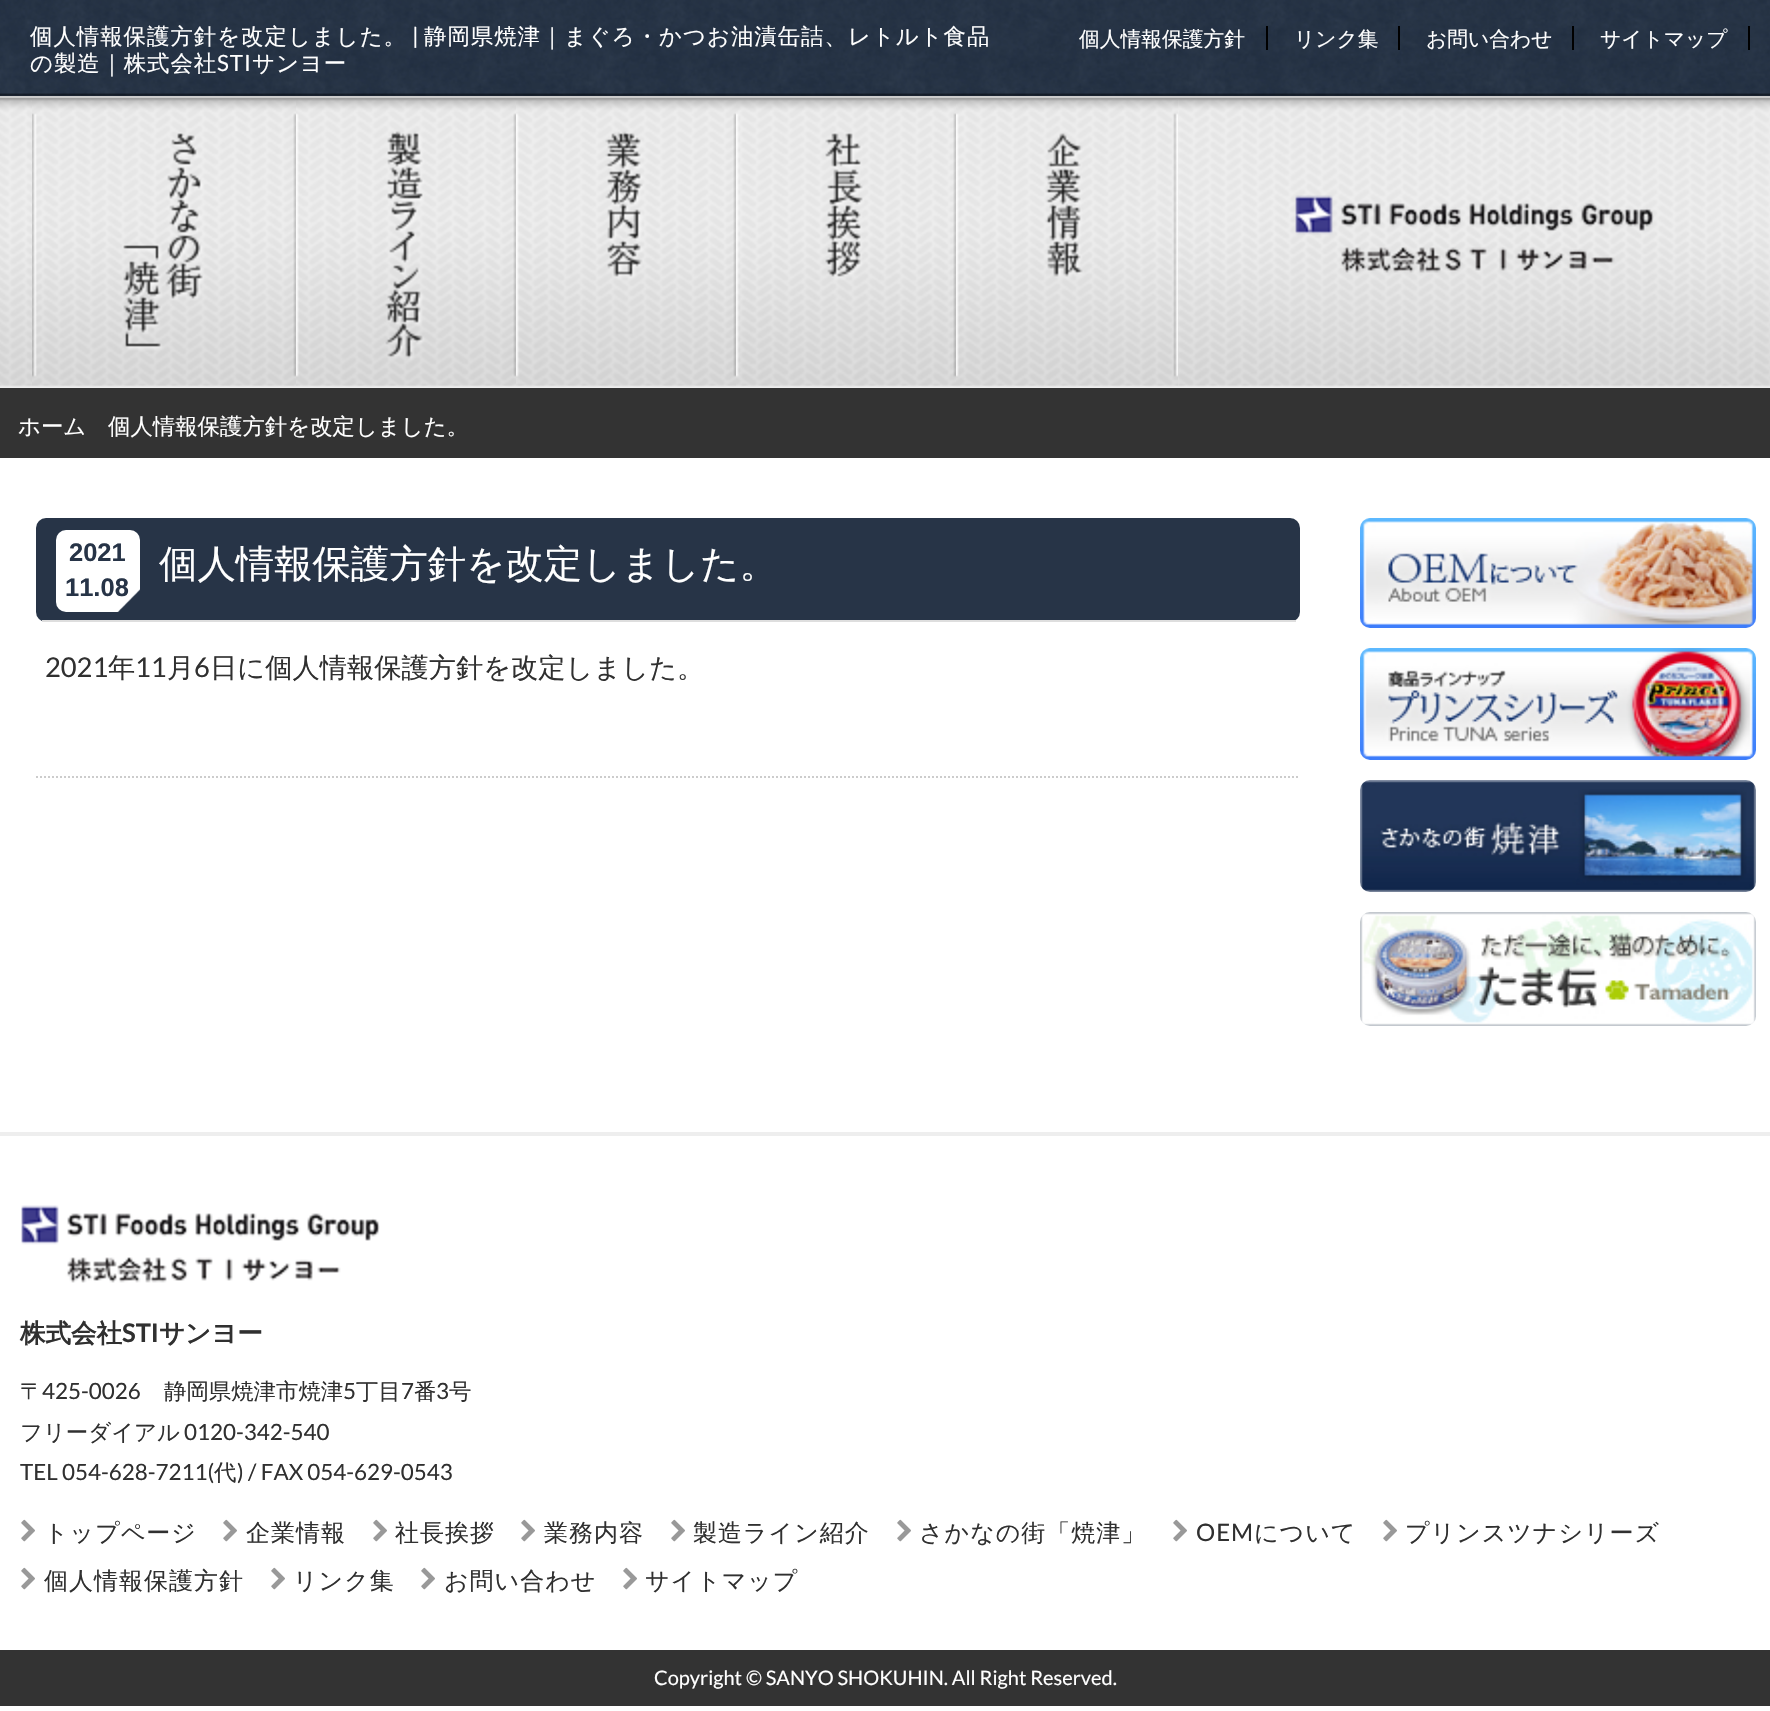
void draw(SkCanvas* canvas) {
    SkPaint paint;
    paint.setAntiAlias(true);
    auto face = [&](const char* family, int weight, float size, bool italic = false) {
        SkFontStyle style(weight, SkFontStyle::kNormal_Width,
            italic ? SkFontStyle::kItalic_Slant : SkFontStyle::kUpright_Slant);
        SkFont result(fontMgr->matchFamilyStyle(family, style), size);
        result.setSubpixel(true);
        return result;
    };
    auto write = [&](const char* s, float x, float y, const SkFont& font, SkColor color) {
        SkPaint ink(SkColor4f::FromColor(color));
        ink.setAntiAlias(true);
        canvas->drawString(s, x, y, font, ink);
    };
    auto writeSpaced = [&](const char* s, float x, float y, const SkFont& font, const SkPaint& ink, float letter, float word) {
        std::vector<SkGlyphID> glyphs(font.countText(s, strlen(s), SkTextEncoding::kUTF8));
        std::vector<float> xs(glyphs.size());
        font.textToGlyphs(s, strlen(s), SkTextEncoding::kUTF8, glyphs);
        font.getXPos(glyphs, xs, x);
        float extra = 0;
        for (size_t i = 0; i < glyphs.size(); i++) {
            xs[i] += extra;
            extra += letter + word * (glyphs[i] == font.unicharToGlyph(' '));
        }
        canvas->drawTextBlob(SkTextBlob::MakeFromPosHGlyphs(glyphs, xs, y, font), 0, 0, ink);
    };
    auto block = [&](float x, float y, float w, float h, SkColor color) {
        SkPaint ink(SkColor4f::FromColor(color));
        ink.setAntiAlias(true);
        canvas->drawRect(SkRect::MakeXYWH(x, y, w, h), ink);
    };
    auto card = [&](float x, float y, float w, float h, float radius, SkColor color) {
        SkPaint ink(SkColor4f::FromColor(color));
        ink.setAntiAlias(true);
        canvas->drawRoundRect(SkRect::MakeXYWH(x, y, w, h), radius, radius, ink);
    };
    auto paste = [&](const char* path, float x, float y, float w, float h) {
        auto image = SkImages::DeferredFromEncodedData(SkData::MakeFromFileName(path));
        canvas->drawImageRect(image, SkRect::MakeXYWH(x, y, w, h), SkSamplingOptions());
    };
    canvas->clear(SK_ColorWHITE);
    block(0, 96, 1770, 2, SkColorSetRGB(204, 204, 204));
    paste("pic1.png", 0, 0, 1770, 96);
    auto kFont1 = face("WenQuanYi Zen Hei", 500, 22.4f);
    paint.setColor(SK_ColorWHITE);
    writeSpaced("個人情報保護方針を改定しました。", 30, 44, kFont1, paint, 1, 0);
    auto kFont2 = face("Lato", 400, 22.4f);
    writeSpaced("|", 412, 44, kFont2, paint, 1, 0);
    writeSpaced("静岡県焼津｜まぐろ・かつお油漬缶詰、レトルト食品", 424, 44, kFont1, paint, 1, 0);
    writeSpaced("の製造｜株式会社", 30, 71, kFont1, paint, 1, 0);
    writeSpaced("STI", 217, 71, kFont2, paint, 1, 0);
    writeSpaced("サンヨー", 252, 71, kFont1, paint, 1, 0);
    block(1266, 26, 2, 24, SK_ColorBLACK);
    auto kFont3 = face("WenQuanYi Zen Hei", 500, 20.75f);
    write("個人情報保護方針", 1079, 46, kFont3, SK_ColorWHITE);
    block(1398, 26, 2, 24, SK_ColorBLACK);
    write("リンク集", 1294, 46, kFont3, SK_ColorWHITE);
    block(1572, 26, 2, 24, SK_ColorBLACK);
    write("お問い合わせ", 1426, 46, kFont3, SK_ColorWHITE);
    block(1748, 26, 2, 24, SK_ColorBLACK);
    write("サイトマップ", 1600, 46, kFont3, SK_ColorWHITE);
    paste("pic2.png", 0, 98, 1770, 290);
    paste("pic3.png", 32, 100, 264, 286);
    paste("pic4.png", 296, 100, 220, 286);
    paste("pic5.png", 516, 100, 220, 286);
    paste("pic6.png", 736, 100, 220, 286);
    paste("pic7.png", 956, 100, 222, 286);
    paste("pic8.png", 1295, 195, 359, 78);
    block(0, 388, 1770, 70, SkColorSetRGB(51, 51, 51));
    write("ホーム", 18, 434, kFont1, SK_ColorWHITE);
    write("個人情報保護方針を改定しました。", 108, 434, kFont1, SK_ColorWHITE);
    card(36, 518, 1264, 104, 10, SkColorSetRGB(39, 52, 71));
    block(42, 620, 1254, 2, SkColorSetRGB(222, 222, 222));
    paste("pic9.png", 56, 530, 84, 82);
    auto kFont4 = face("Liberation Sans", 700, 25.5f);
    write("2021", 69, 561, kFont4, SkColorSetRGB(39, 52, 71));
    write("11.08", 65, 596, kFont4, SkColorSetRGB(39, 52, 71));
    auto kFont5 = face("WenQuanYi Zen Hei", 500, 38.4f);
    write("個人情報保護方針を改定しました。", 159, 577, kFont5, SK_ColorWHITE);
    paint.setStyle(SkPaint::kStroke_Style);
    paint.setStrokeWidth(2);
    paint.setColor(SkColorSetRGB(204, 204, 204));
    paint.setPathEffect(SkDashPathEffect::Make({{2, 2}}, 0));
    canvas->drawPath(SkPathBuilder().moveTo(36, 777).lineTo(1300, 777).detach(), paint);
    paint.setPathEffect(nullptr);
    auto kFont6 = face("Lato", 400, 27.25f);
    write("2021", 45, 677, kFont6, SkColorSetRGB(48, 48, 48));
    auto kFont7 = face("WenQuanYi Zen Hei", 500, 27.25f);
    write("年", 108, 677, kFont7, SkColorSetRGB(48, 48, 48));
    write("11", 135, 677, kFont6, SkColorSetRGB(48, 48, 48));
    write("月", 167, 677, kFont7, SkColorSetRGB(48, 48, 48));
    write("6", 194, 677, kFont6, SkColorSetRGB(48, 48, 48));
    write("日に個人情報保護方針を改定しました。", 210, 677, kFont7, SkColorSetRGB(48, 48, 48));
    paste("pic10.png", 1360, 518, 396, 110);
    paste("pic11.png", 1360, 648, 396, 112);
    paste("pic12.png", 1360, 780, 396, 112);
    paste("pic13.png", 1360, 912, 396, 114);
    block(0, 1132, 1770, 4, SkColorSetRGB(238, 238, 238));
    paste("pic14.png", 21, 1205, 359, 78);
    auto kFont8 = face("WenQuanYi Zen Hei", 700, 25.5f);
    write("株式会社", 20, 1342, kFont8, SkColorSetRGB(48, 48, 48));
    auto kFont9 = face("Lato", 700, 25.5f);
    write("STI", 122, 1342, kFont9, SkColorSetRGB(48, 48, 48));
    write("サンヨー", 159, 1342, kFont8, SkColorSetRGB(48, 48, 48));
    write("〒", 20, 1399, kFont1, SkColorSetRGB(48, 48, 48));
    write("425-0026", 42, 1399, kFont2, SkColorSetRGB(48, 48, 48));
    write("静岡県焼津市焼津", 164, 1399, kFont1, SkColorSetRGB(48, 48, 48));
    write("5", 343, 1399, kFont2, SkColorSetRGB(48, 48, 48));
    write("丁目", 356, 1399, kFont1, SkColorSetRGB(48, 48, 48));
    write("7", 401, 1399, kFont2, SkColorSetRGB(48, 48, 48));
    write("番", 414, 1399, kFont1, SkColorSetRGB(48, 48, 48));
    write("3", 436, 1399, kFont2, SkColorSetRGB(48, 48, 48));
    write("号", 449, 1399, kFont1, SkColorSetRGB(48, 48, 48));
    write("フリーダイアル", 20, 1440, kFont1, SkColorSetRGB(48, 48, 48));
    write("0120-342-540", 184, 1440, kFont2, SkColorSetRGB(48, 48, 48));
    write("TEL 054-628-7211(", 20, 1480, kFont2, SkColorSetRGB(48, 48, 48));
    write("代", 214, 1480, kFont1, SkColorSetRGB(48, 48, 48));
    write(") / FAX 054-629-0543", 237, 1480, kFont2, SkColorSetRGB(48, 48, 48));
    paste("pic15.png", 21, 1519, 14, 23);
    auto kFont10 = face("WenQuanYi Zen Hei", 500, 24);
    paint.setStyle(SkPaint::kFill_Style);
    paint.setColor(SkColorSetRGB(48, 48, 48));
    writeSpaced("トップページ", 44, 1541, kFont10, paint, 1, 0);
    paste("pic15.png", 223, 1519, 14, 23);
    writeSpaced("企業情報", 246, 1541, kFont10, paint, 1, 0);
    paste("pic15.png", 373, 1519, 14, 23);
    writeSpaced("社長挨拶", 395, 1541, kFont10, paint, 1, 0);
    paste("pic15.png", 521, 1519, 14, 23);
    writeSpaced("業務内容", 544, 1541, kFont10, paint, 1, 0);
    paste("pic15.png", 671, 1519, 14, 23);
    writeSpaced("製造ライン紹介", 693, 1541, kFont10, paint, 1, 0);
    paste("pic15.png", 897, 1519, 14, 23);
    writeSpaced("さかなの街「焼津」", 919, 1541, kFont10, paint, 1, 0);
    paste("pic15.png", 1173, 1519, 14, 23);
    auto kFont11 = face("Lato", 400, 24);
    writeSpaced("OEM", 1196, 1541, kFont11, paint, 1, 0);
    writeSpaced("について", 1254, 1541, kFont10, paint, 1, 0);
    paste("pic15.png", 1383, 1519, 14, 23);
    writeSpaced("プリンスツナシリーズ", 1405, 1541, kFont10, paint, 1, 0);
    paste("pic15.png", 21, 1567, 14, 23);
    writeSpaced("個人情報保護方針", 44, 1589, kFont10, paint, 1, 0);
    paste("pic15.png", 271, 1567, 14, 23);
    writeSpaced("リンク集", 293, 1589, kFont10, paint, 1, 0);
    paste("pic15.png", 421, 1567, 14, 23);
    writeSpaced("お問い合わせ", 444, 1589, kFont10, paint, 1, 0);
    paste("pic15.png", 623, 1567, 14, 23);
    writeSpaced("サイトマップ", 645, 1589, kFont10, paint, 1, 0);
    block(0, 1650, 1770, 56, SkColorSetRGB(51, 51, 51));
    auto kFont12 = face("Lato", 400, 20);
    write("Copyright © SANYO SHOKUHIN. All Right Reserved.", 654, 1685, kFont12, SK_ColorWHITE);
}
